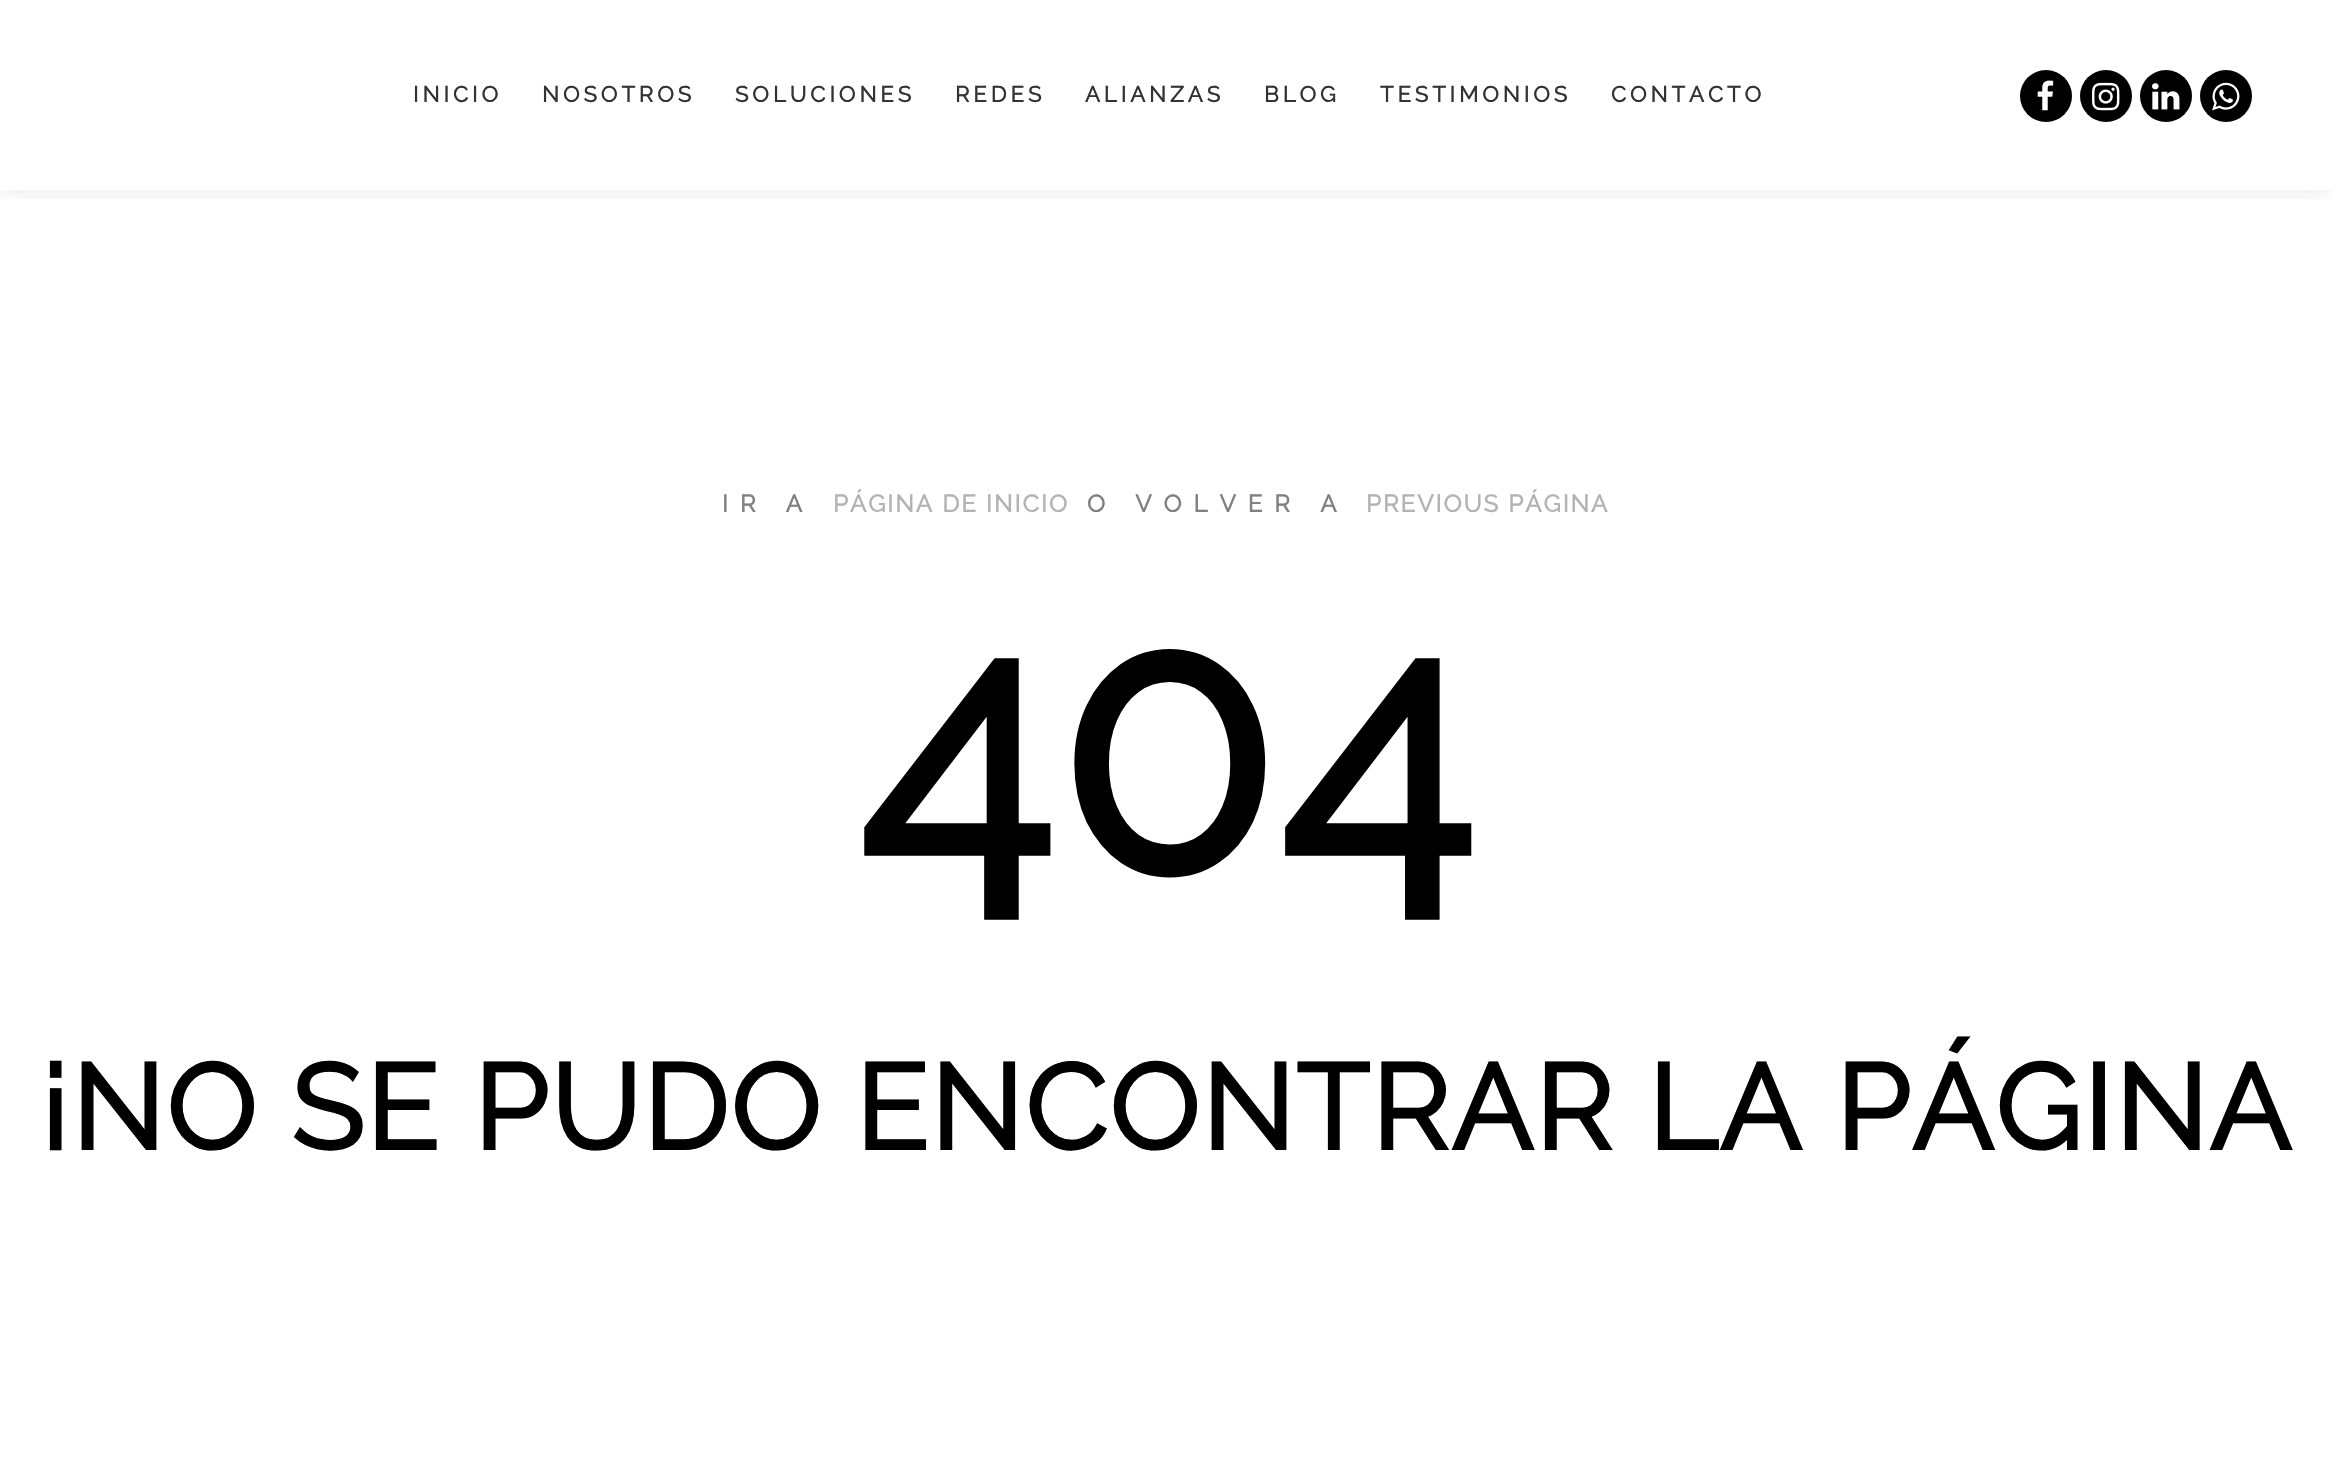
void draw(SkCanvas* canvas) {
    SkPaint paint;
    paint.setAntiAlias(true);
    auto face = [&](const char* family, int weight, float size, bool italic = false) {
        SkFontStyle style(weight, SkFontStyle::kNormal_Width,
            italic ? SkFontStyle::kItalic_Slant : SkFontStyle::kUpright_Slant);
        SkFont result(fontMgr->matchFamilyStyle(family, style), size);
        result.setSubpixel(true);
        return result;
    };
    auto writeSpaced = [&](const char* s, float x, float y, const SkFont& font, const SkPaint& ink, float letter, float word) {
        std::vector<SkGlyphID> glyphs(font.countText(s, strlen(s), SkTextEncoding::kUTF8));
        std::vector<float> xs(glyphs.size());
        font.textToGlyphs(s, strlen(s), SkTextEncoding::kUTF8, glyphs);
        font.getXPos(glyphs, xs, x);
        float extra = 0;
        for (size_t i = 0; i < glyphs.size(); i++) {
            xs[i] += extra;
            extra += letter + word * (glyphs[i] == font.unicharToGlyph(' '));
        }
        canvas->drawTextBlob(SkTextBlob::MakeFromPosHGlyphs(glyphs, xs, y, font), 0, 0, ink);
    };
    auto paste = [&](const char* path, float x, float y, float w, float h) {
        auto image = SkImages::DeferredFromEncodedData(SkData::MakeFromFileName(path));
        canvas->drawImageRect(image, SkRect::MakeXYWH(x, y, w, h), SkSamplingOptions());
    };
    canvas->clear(SK_ColorWHITE);
    canvas->save();
    canvas->clipRect(SkRect::MakeXYWH(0, 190, 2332, 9));
    paint.setColor(SkColorSetARGB(23, 0, 0, 0));
    paint.setMaskFilter(SkMaskFilter::MakeBlur(kNormal_SkBlurStyle, 12));
    canvas->drawRect(SkRect::MakeXYWH(0, 0, 2332, 190), paint);
    paint.setMaskFilter(nullptr);
    canvas->restore();
    auto kFont1 = face("Raleway", 700, 22);
    paint.setColor(SkColorSetRGB(51, 51, 51));
    writeSpaced("INICIO", 413, 102, kFont1, paint, 4, 0);
    writeSpaced("NOSOTROS", 542, 102, kFont1, paint, 4, 0);
    writeSpaced("SOLUCIONES", 735, 102, kFont1, paint, 4, 0);
    writeSpaced("REDES", 955, 102, kFont1, paint, 4, 0);
    writeSpaced("ALIANZAS", 1085, 102, kFont1, paint, 4, 0);
    writeSpaced("BLOG", 1264, 102, kFont1, paint, 4, 0);
    writeSpaced("TESTIMONIOS", 1380, 102, kFont1, paint, 4, 0);
    writeSpaced("CONTACTO", 1611, 102, kFont1, paint, 4, 0);
    paint.setColor(SK_ColorBLACK);
    canvas->drawCircle(2046, 96, 26, paint);
    paste("pic1.png", 2037, 80, 17, 31);
    canvas->drawCircle(2106, 96, 26, paint);
    paste("pic2.png", 2092, 82, 28, 29);
    canvas->drawCircle(2166, 96, 26, paint);
    paste("pic3.png", 2152, 83, 28, 27);
    canvas->drawCircle(2226, 96, 26, paint);
    paste("pic4.png", 2212, 82, 28, 29);
    auto kFont2 = face("Raleway", 700, 24);
    paint.setColor(SkColorSetRGB(128, 128, 128));
    writeSpaced("IR A", 722, 512, kFont2, paint, 12, 0);
    paint.setColor(SkColorSetRGB(179, 179, 179));
    writeSpaced("PÁGINA DE INICIO", 833, 512, kFont2, paint, 2, 0);
    paint.setColor(SkColorSetRGB(128, 128, 128));
    writeSpaced("O VOLVER A", 1087, 512, kFont2, paint, 12, 0);
    paint.setColor(SkColorSetRGB(179, 179, 179));
    writeSpaced("PREVIOUS PÁGINA", 1366, 512, kFont2, paint, 2, 0);
    auto kFont3 = face("Raleway", 700, 360);
    paint.setColor(SK_ColorBLACK);
    writeSpaced("404", 856, 874, kFont3, paint, 2, 0);
    auto kFont4 = face("Raleway", 700, 120);
    writeSpaced("¡NO SE PUDO ENCONTRAR LA PÁGINA", 39, 1150, kFont4, paint, 2, 0);
}
